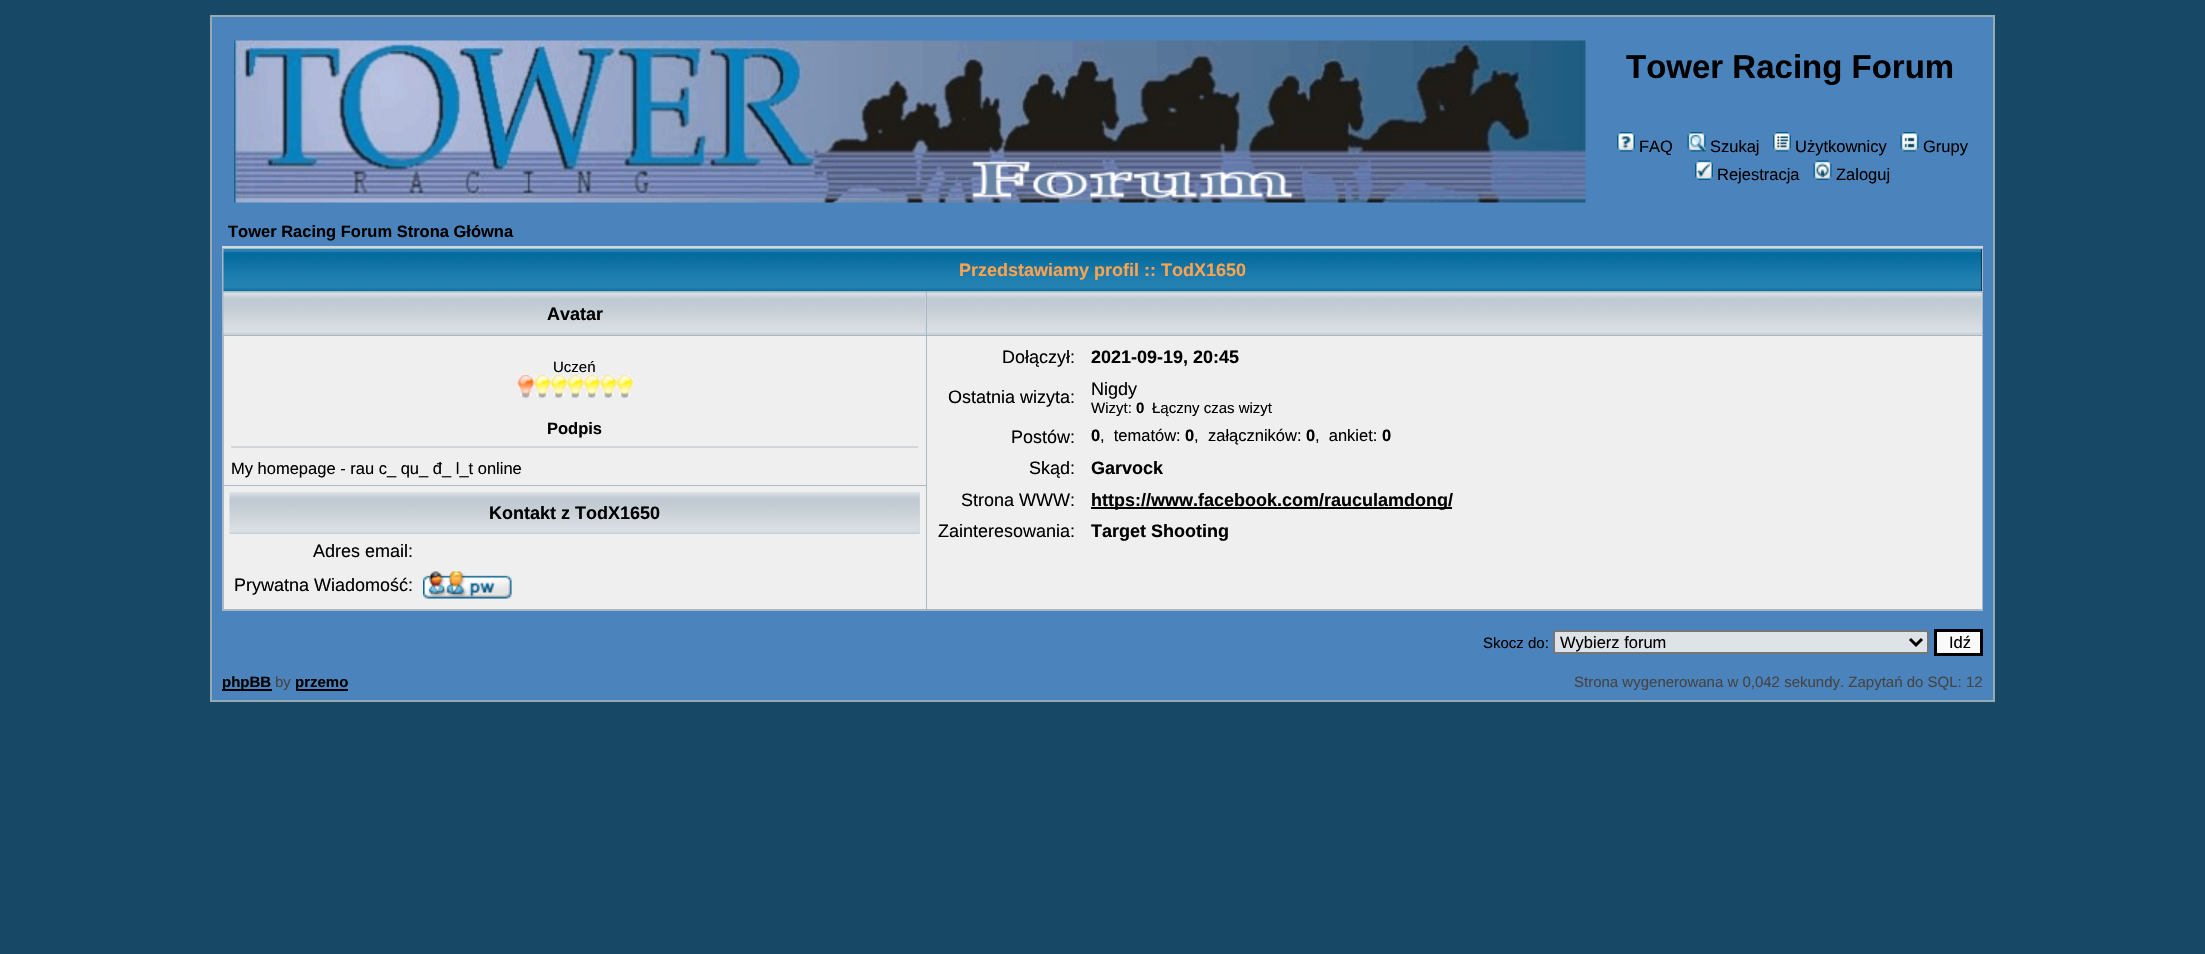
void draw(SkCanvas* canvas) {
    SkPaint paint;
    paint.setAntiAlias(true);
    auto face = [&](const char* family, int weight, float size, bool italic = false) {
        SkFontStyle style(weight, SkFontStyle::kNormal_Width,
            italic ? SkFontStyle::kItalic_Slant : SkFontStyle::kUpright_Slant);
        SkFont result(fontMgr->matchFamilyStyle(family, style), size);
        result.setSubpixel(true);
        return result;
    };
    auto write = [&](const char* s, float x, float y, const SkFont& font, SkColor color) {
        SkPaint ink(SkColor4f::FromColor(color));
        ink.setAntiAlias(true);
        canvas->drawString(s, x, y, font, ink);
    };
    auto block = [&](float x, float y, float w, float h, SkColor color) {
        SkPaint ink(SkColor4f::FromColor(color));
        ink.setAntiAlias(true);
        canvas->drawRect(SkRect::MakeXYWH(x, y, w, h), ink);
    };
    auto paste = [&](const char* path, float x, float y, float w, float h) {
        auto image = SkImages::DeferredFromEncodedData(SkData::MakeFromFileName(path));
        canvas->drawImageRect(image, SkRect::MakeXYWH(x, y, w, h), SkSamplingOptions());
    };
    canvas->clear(SkColorSetRGB(23, 73, 103));
    paint.setColor(SkColorSetRGB(75, 131, 188));
    canvas->drawRect(SkRect::MakeXYWH(211, 16, 1783, 685), paint);
    paint.setStyle(SkPaint::kStroke_Style);
    paint.setStrokeWidth(2);
    paint.setColor(SkColorSetRGB(152, 170, 177));
    canvas->drawRect(SkRect::MakeXYWH(211, 16, 1783, 685), paint);
    paste("pic1.png", 234, 40, 1352, 163);
    auto kFont1 = face("Liberation Sans", 700, 33);
    write("Tower Racing Forum", 1626, 78, kFont1, SK_ColorBLACK);
    paste("pic2.png", 1617, 132, 18, 20);
    auto kFont2 = face("Liberation Sans", 400, 16.5f);
    write("FAQ", 1639, 152, kFont2, SK_ColorBLACK);
    paste("pic3.png", 1687, 132, 19, 20);
    write("Szukaj", 1710, 152, kFont2, SK_ColorBLACK);
    paste("pic4.png", 1773, 132, 18, 20);
    write("Użytkownicy", 1795, 152, kFont2, SK_ColorBLACK);
    paste("pic5.png", 1900, 132, 19, 20);
    write("Grupy", 1923, 152, kFont2, SK_ColorBLACK);
    paste("pic6.png", 1695, 160, 18, 20);
    write("Rejestracja", 1717, 180, kFont2, SK_ColorBLACK);
    paste("pic7.png", 1813, 160, 19, 20);
    write("Zaloguj", 1836, 180, kFont2, SK_ColorBLACK);
    auto kFont3 = face("Liberation Sans", 700, 16.5f);
    write("Tower Racing Forum Strona Główna", 228, 237, kFont3, SK_ColorBLACK);
    block(222, 248, 1761, 363, SkColorSetRGB(169, 184, 194));
    block(222, 246, 1761, 2, SkColorSetRGB(209, 215, 220));
    block(1981, 249, 1, 42, SK_ColorBLACK);
    paste("pic8.png", 223, 249, 1759, 42);
    auto kFont4 = face("Liberation Sans", 700, 18);
    write("Przedstawiamy profil :: TodX1650", 959, 276, kFont4, SkColorSetRGB(255, 163, 79));
    block(224, 293, 702, 42, SkColorSetRGB(209, 215, 220));
    paste("pic9.png", 223, 292, 703, 43);
    write("Avatar", 547, 320, kFont4, SK_ColorBLACK);
    block(927, 293, 1055, 42, SkColorSetRGB(209, 215, 220));
    paste("pic10.png", 927, 292, 1055, 43);
    block(224, 336, 702, 149, SkColorSetRGB(239, 239, 239));
    auto kFont5 = face("Liberation Sans", 400, 15);
    write("Uczeń", 553, 372, kFont5, SK_ColorBLACK);
    paste("pic11.png", 517, 375, 116, 23);
    write("Podpis", 547, 434, kFont3, SK_ColorBLACK);
    block(231, 446, 687, 2, SkColorSetRGB(209, 215, 220));
    write("My homepage - rau c_ qu_ đ_ l_t online", 231, 474, kFont2, SK_ColorBLACK);
    block(927, 336, 1055, 273, SkColorSetRGB(239, 239, 239));
    auto kFont6 = face("Liberation Sans", 400, 18);
    write("Dołączył:", 1002, 363, kFont6, SK_ColorBLACK);
    write("2021-09-19, 20:45", 1091, 363, kFont4, SK_ColorBLACK);
    write("Ostatnia wizyta:", 948, 403, kFont6, SK_ColorBLACK);
    write("Nigdy", 1091, 395, kFont6, SK_ColorBLACK);
    write("Wizyt:", 1091, 413, kFont5, SK_ColorBLACK);
    auto kFont7 = face("Liberation Sans", 700, 15);
    write("0", 1136, 413, kFont7, SK_ColorBLACK);
    write("Łączny czas wizyt", 1152, 413, kFont5, SK_ColorBLACK);
    write("Postów:", 1011, 443, kFont6, SK_ColorBLACK);
    write("0", 1091, 441, kFont3, SK_ColorBLACK);
    write(",  tematów:", 1100, 441, kFont2, SK_ColorBLACK);
    write("0", 1185, 441, kFont3, SK_ColorBLACK);
    write(",", 1194, 441, kFont2, SK_ColorBLACK);
    write("załączników:", 1208, 441, kFont2, SK_ColorBLACK);
    write("0", 1306, 441, kFont3, SK_ColorBLACK);
    write(",  ankiet:", 1315, 441, kFont2, SK_ColorBLACK);
    write("0", 1382, 441, kFont3, SK_ColorBLACK);
    write("Skąd:", 1029, 474, kFont6, SK_ColorBLACK);
    write("Garvock", 1091, 474, kFont4, SK_ColorBLACK);
    write("Strona WWW:", 961, 506, kFont6, SK_ColorBLACK);
    block(1091, 507, 361, 2, SK_ColorBLACK);
    write("https://www.facebook.com/rauculamdong/", 1091, 506, kFont4, SK_ColorBLACK);
    write("Zainteresowania:", 938, 537, kFont6, SK_ColorBLACK);
    write("Target Shooting", 1091, 537, kFont4, SK_ColorBLACK);
    block(224, 486, 702, 123, SkColorSetRGB(239, 239, 239));
    block(919, 492, 1, 42, SkColorSetRGB(209, 215, 220));
    paste("pic12.png", 229, 492, 691, 42);
    write("Kontakt z TodX1650", 489, 519, kFont4, SK_ColorBLACK);
    write("Adres email:", 313, 557, kFont6, SK_ColorBLACK);
    write("Prywatna Wiadomość:", 234, 591, kFont6, SK_ColorBLACK);
    paste("pic13.png", 423, 571, 89, 28);
    write("Skocz do:", 1483, 648, kFont5, SK_ColorBLACK);
    paint.setStyle(SkPaint::kFill_Style);
    paint.setColor(SkColorSetRGB(222, 227, 231));
    canvas->drawRoundRect(SkRect::MakeXYWH(1554, 631, 374, 22), 2, 2, paint);
    paint.setStyle(SkPaint::kStroke_Style);
    paint.setColor(SkColorSetRGB(118, 118, 118));
    canvas->drawRoundRect(SkRect::MakeXYWH(1554, 631, 374, 22), 2, 2, paint);
    paint.setStrokeWidth(3);
    paint.setColor(SK_ColorBLACK);
    canvas->drawPath(SkPathBuilder().moveTo(1910, 639).lineTo(1916, 645).lineTo(1922, 639).detach(), paint);
    write("Wybierz forum", 1560, 648, kFont2, SK_ColorBLACK);
    paint.setStyle(SkPaint::kFill_Style);
    paint.setColor(SkColorSetRGB(250, 250, 250));
    canvas->drawRect(SkRect::MakeXYWH(1935.5f, 630.5f, 46, 24), paint);
    paint.setStyle(SkPaint::kStroke_Style);
    paint.setColor(SK_ColorBLACK);
    canvas->drawRect(SkRect::MakeXYWH(1935.5f, 630.5f, 46, 24), paint);
    write("Idź", 1949, 648, kFont2, SK_ColorBLACK);
    block(222, 689, 50, 2, SK_ColorBLACK);
    write("phpBB", 222, 687, kFont7, SK_ColorBLACK);
    write("by", 275, 687, kFont5, SkColorSetRGB(68, 68, 68));
    block(296, 689, 52, 2, SK_ColorBLACK);
    write("przemo", 295, 687, kFont7, SK_ColorBLACK);
    write("Strona wygenerowana w 0,042 sekundy. Zapytań do SQL: 12", 1574, 687, kFont5, SkColorSetRGB(68, 68, 68));
}
